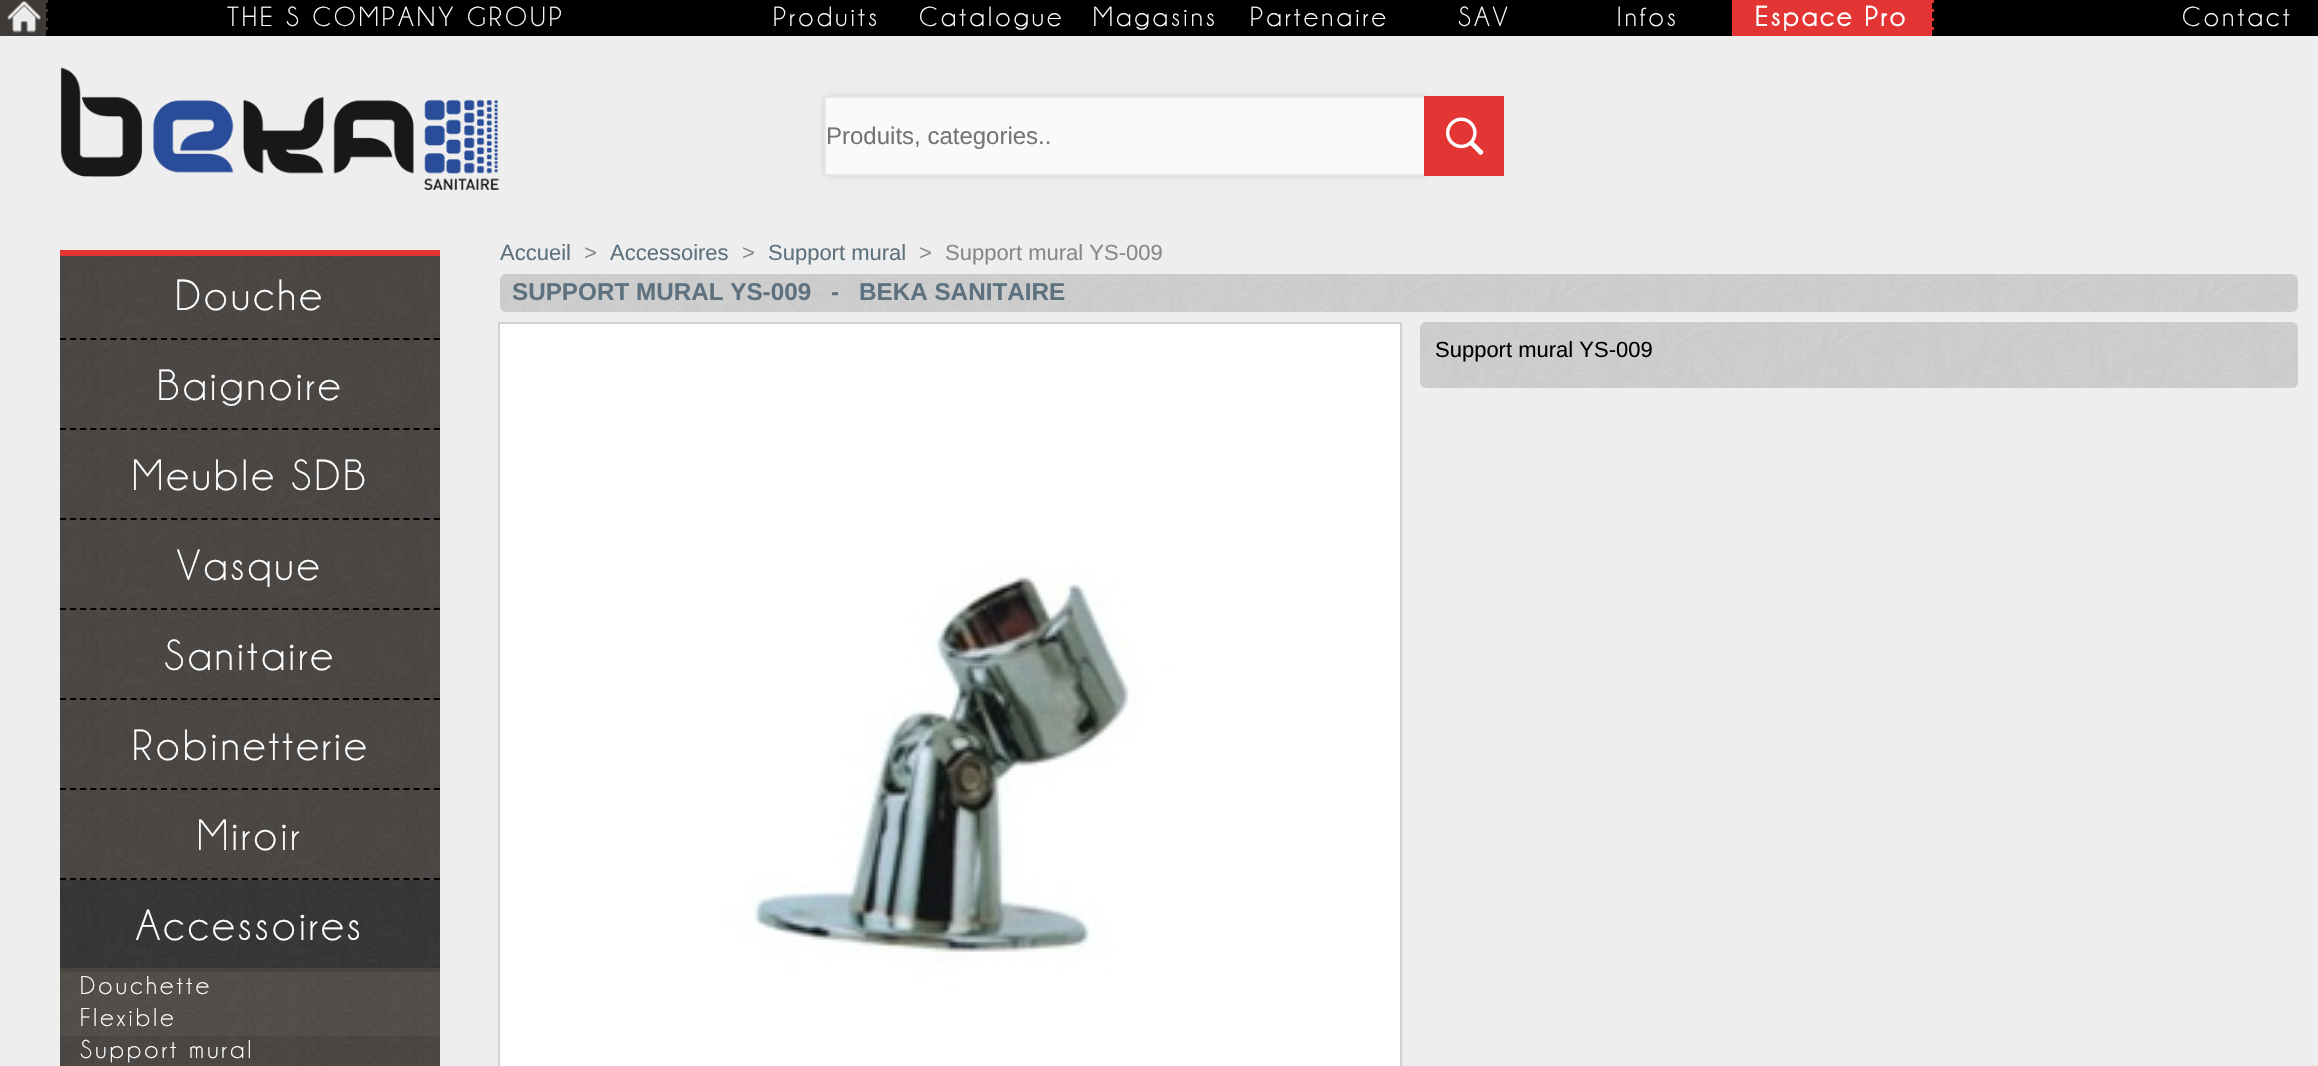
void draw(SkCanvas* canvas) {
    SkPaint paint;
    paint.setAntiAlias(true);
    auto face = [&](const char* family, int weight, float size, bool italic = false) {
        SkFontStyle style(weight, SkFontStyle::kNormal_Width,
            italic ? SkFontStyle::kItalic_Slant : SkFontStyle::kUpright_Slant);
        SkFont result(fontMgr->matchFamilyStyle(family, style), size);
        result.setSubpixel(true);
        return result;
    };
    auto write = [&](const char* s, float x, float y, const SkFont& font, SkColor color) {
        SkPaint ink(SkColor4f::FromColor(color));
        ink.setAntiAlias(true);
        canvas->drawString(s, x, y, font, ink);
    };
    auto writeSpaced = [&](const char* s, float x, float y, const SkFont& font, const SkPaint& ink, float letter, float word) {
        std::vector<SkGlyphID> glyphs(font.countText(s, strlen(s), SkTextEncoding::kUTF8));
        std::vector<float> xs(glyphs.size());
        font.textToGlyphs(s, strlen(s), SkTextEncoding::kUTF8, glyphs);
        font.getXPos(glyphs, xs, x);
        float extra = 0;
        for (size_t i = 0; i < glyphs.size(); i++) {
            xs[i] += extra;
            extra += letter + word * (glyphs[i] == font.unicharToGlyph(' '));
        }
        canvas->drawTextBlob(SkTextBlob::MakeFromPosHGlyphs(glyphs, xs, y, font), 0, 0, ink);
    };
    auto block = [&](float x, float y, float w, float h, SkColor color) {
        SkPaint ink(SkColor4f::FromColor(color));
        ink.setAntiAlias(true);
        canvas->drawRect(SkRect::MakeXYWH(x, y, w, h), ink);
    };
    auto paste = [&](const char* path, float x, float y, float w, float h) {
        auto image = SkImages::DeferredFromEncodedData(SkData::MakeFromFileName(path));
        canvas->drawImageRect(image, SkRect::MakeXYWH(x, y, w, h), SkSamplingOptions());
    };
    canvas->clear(SkColorSetRGB(238, 238, 238));
    block(48, 0, 2270, 36, SK_ColorBLACK);
    block(0, 0, 48, 36, SkColorSetRGB(62, 58, 55));
    paint.setStyle(SkPaint::kStroke_Style);
    paint.setStrokeWidth(2);
    paint.setColor(SK_ColorBLACK);
    paint.setPathEffect(SkDashPathEffect::Make({{6, 3}}, 0));
    canvas->drawPath(SkPathBuilder().moveTo(47, -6).lineTo(47, 36).detach(), paint);
    paint.setPathEffect(nullptr);
    paste("pic1.png", 7, 1, 34, 32);
    auto kFont1 = face("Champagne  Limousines", 400, 28);
    paint.setStyle(SkPaint::kFill_Style);
    paint.setColor(SK_ColorWHITE);
    writeSpaced("THE S COMPANY GROUP", 227, 26, kFont1, paint, 3.25f, 0);
    writeSpaced("Produits", 773, 26, kFont1, paint, 3.25f, 0);
    writeSpaced("Catalogue", 919, 26, kFont1, paint, 3.25f, 0);
    writeSpaced("Magasins", 1093, 26, kFont1, paint, 3.25f, 0);
    writeSpaced("Partenaire", 1250, 26, kFont1, paint, 3.25f, 0);
    writeSpaced("SAV", 1458, 26, kFont1, paint, 3.25f, 0);
    writeSpaced("Infos", 1617, 26, kFont1, paint, 3.25f, 0);
    block(1732, 0, 202, 36, SkColorSetRGB(228, 53, 53));
    paint.setStyle(SkPaint::kStroke_Style);
    paint.setColor(SK_ColorBLACK);
    paint.setPathEffect(SkDashPathEffect::Make({{6, 3}}, 0));
    canvas->drawPath(SkPathBuilder().moveTo(1933, -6).lineTo(1933, 36).detach(), paint);
    paint.setPathEffect(nullptr);
    auto kFont2 = face("Champagne  Limousines", 700, 28);
    paint.setStyle(SkPaint::kFill_Style);
    paint.setColor(SK_ColorWHITE);
    writeSpaced("Espace Pro", 1755, 26, kFont2, paint, 3.25f, 0);
    writeSpaced("Contact", 2182, 26, kFont1, paint, 3.25f, 0);
    paste("pic2.png", 60, 67, 440, 123);
    paint.setColor(SkColorSetRGB(192, 190, 190));
    paint.setMaskFilter(SkMaskFilter::MakeBlur(kNormal_SkBlurStyle, 4));
    canvas->drawRect(SkRect::MakeXYWH(826, 98, 600, 76), paint);
    paint.setMaskFilter(nullptr);
    block(826, 98, 598, 76, SkColorSetRGB(250, 250, 250));
    paint.setStyle(SkPaint::kStroke_Style);
    paint.setColor(SkColorSetRGB(230, 230, 230));
    canvas->drawRect(SkRect::MakeXYWH(825, 97, 602, 78), paint);
    auto kFont3 = face("Liberation Sans", 400, 24);
    write("Produits, categories..", 826, 144, kFont3, SkColorSetRGB(117, 117, 117));
    block(1424, 96, 80, 80, SkColorSetRGB(228, 53, 53));
    paste("pic3.png", 1446, 117, 38, 38);
    block(60, 250, 380, 6, SkColorSetRGB(228, 53, 53));
    block(60, 256, 380, 624, SkColorSetRGB(62, 58, 55));
    paste("pic4.png", 60, 256, 380, 84);
    paint.setColor(SK_ColorBLACK);
    paint.setPathEffect(SkDashPathEffect::Make({{6, 4.1f}}, 0));
    canvas->drawPath(SkPathBuilder().moveTo(60, 339).lineTo(440, 339).detach(), paint);
    paint.setPathEffect(nullptr);
    auto kFont4 = face("Champagne  Limousines", 400, 44);
    paint.setStyle(SkPaint::kFill_Style);
    paint.setColor(SK_ColorWHITE);
    writeSpaced("Douche", 175, 310, kFont4, paint, 3.25f, 0);
    paste("pic5.png", 60, 340, 380, 90);
    paint.setStyle(SkPaint::kStroke_Style);
    paint.setColor(SK_ColorBLACK);
    paint.setPathEffect(SkDashPathEffect::Make({{6, 4.1f}}, 0));
    canvas->drawPath(SkPathBuilder().moveTo(60, 429).lineTo(440, 429).detach(), paint);
    paint.setPathEffect(nullptr);
    paint.setStyle(SkPaint::kFill_Style);
    paint.setColor(SK_ColorWHITE);
    writeSpaced("Baignoire", 157, 400, kFont4, paint, 3.25f, 0);
    paste("pic5.png", 60, 430, 380, 90);
    paint.setStyle(SkPaint::kStroke_Style);
    paint.setColor(SK_ColorBLACK);
    paint.setPathEffect(SkDashPathEffect::Make({{6, 4.1f}}, 0));
    canvas->drawPath(SkPathBuilder().moveTo(60, 519).lineTo(440, 519).detach(), paint);
    paint.setPathEffect(nullptr);
    paint.setStyle(SkPaint::kFill_Style);
    paint.setColor(SK_ColorWHITE);
    writeSpaced("Meuble SDB", 132, 490, kFont4, paint, 3.25f, 0);
    paste("pic5.png", 60, 520, 380, 90);
    paint.setStyle(SkPaint::kStroke_Style);
    paint.setColor(SK_ColorBLACK);
    paint.setPathEffect(SkDashPathEffect::Make({{6, 4.1f}}, 0));
    canvas->drawPath(SkPathBuilder().moveTo(60, 609).lineTo(440, 609).detach(), paint);
    paint.setPathEffect(nullptr);
    paint.setStyle(SkPaint::kFill_Style);
    paint.setColor(SK_ColorWHITE);
    writeSpaced("Vasque", 177, 580, kFont4, paint, 3.25f, 0);
    paste("pic5.png", 60, 610, 380, 90);
    paint.setStyle(SkPaint::kStroke_Style);
    paint.setColor(SK_ColorBLACK);
    paint.setPathEffect(SkDashPathEffect::Make({{6, 4.1f}}, 0));
    canvas->drawPath(SkPathBuilder().moveTo(60, 699).lineTo(440, 699).detach(), paint);
    paint.setPathEffect(nullptr);
    paint.setStyle(SkPaint::kFill_Style);
    paint.setColor(SK_ColorWHITE);
    writeSpaced("Sanitaire", 164, 670, kFont4, paint, 3.25f, 0);
    paste("pic5.png", 60, 700, 380, 90);
    paint.setStyle(SkPaint::kStroke_Style);
    paint.setColor(SK_ColorBLACK);
    paint.setPathEffect(SkDashPathEffect::Make({{6, 4.1f}}, 0));
    canvas->drawPath(SkPathBuilder().moveTo(60, 789).lineTo(440, 789).detach(), paint);
    paint.setPathEffect(nullptr);
    paint.setStyle(SkPaint::kFill_Style);
    paint.setColor(SK_ColorWHITE);
    writeSpaced("Robinetterie", 132, 760, kFont4, paint, 3.25f, 0);
    paste("pic5.png", 60, 790, 380, 90);
    paint.setStyle(SkPaint::kStroke_Style);
    paint.setColor(SK_ColorBLACK);
    paint.setPathEffect(SkDashPathEffect::Make({{6, 4.1f}}, 0));
    canvas->drawPath(SkPathBuilder().moveTo(60, 879).lineTo(440, 879).detach(), paint);
    paint.setPathEffect(nullptr);
    paint.setStyle(SkPaint::kFill_Style);
    paint.setColor(SK_ColorWHITE);
    writeSpaced("Miroir", 197, 850, kFont4, paint, 3.25f, 0);
    block(60, 880, 380, 88, SkColorSetRGB(39, 37, 34));
    paste("pic6.png", 60, 880, 380, 88);
    writeSpaced("Accessoires", 136, 940, kFont4, paint, 3.25f, 0);
    block(60, 968, 380, 68, SkColorSetRGB(73, 68, 61));
    paste("pic7.png", 60, 972, 380, 32);
    auto kFont5 = face("Champagne  Limousines", 400, 26);
    writeSpaced("Douchette", 80, 994, kFont5, paint, 3.25f, 0);
    paste("pic7.png", 60, 1004, 380, 32);
    writeSpaced("Flexible", 80, 1026, kFont5, paint, 3.25f, 0);
    block(60, 1036, 380, 30, SkColorSetRGB(62, 58, 55));
    paste("pic8.png", 60, 1036, 380, 30);
    writeSpaced("Support mural", 80, 1058, kFont5, paint, 3.25f, 0);
    auto kFont6 = face("Liberation Sans", 400, 22);
    write("Accueil", 500, 260, kFont6, SkColorSetRGB(93, 113, 126));
    write(">", 584, 260, kFont6, SkColorSetRGB(136, 136, 136));
    write("Accessoires", 610, 260, kFont6, SkColorSetRGB(93, 113, 126));
    write(">", 742, 260, kFont6, SkColorSetRGB(136, 136, 136));
    write("Support mural", 768, 260, kFont6, SkColorSetRGB(93, 113, 126));
    write(">", 919, 260, kFont6, SkColorSetRGB(136, 136, 136));
    write("Support mural YS-009", 945, 260, kFont6, SkColorSetRGB(136, 136, 136));
    paste("pic9.png", 500, 274, 1798, 38);
    auto kFont7 = face("Liberation Sans", 700, 24.25f);
    write("SUPPORT MURAL YS-009", 512, 300, kFont7, SkColorSetRGB(93, 113, 126));
    write("-", 831, 300, kFont7, SkColorSetRGB(93, 113, 126));
    write("BEKA SANITAIRE", 859, 300, kFont7, SkColorSetRGB(93, 113, 126));
    paint.setStyle(SkPaint::kStroke_Style);
    paint.setColor(SkColorSetRGB(208, 209, 213));
    canvas->drawRect(SkRect::MakeXYWH(499, 323, 902, 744), paint);
    paste("pic10.png", 500, 324, 900, 742);
    paste("pic11.png", 1420, 322, 878, 66);
    write("Support mural YS-009", 1435, 357, kFont6, SK_ColorBLACK);
}
